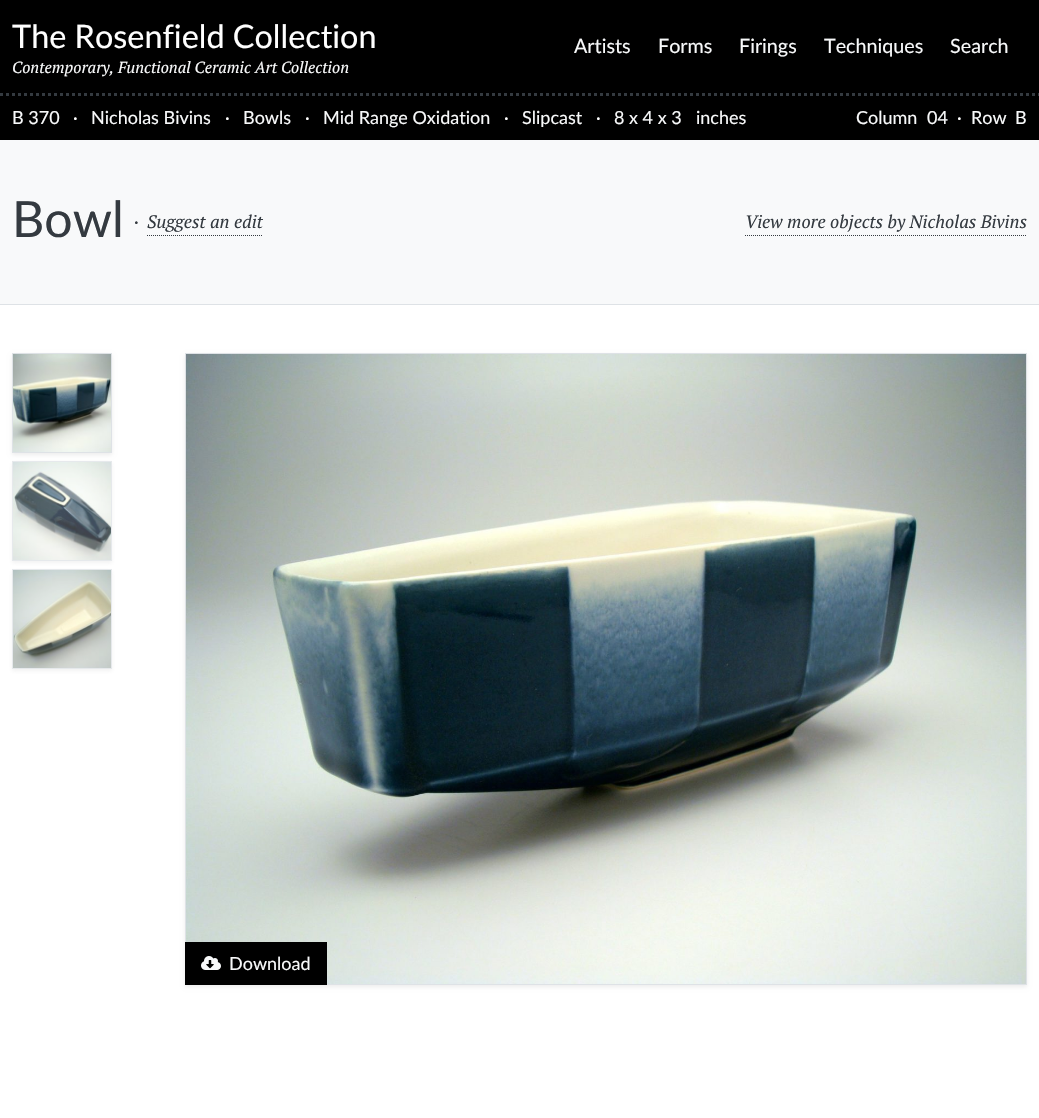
void draw(SkCanvas* canvas) {
    SkPaint paint;
    paint.setAntiAlias(true);
    auto face = [&](const char* family, int weight, float size, bool italic = false) {
        SkFontStyle style(weight, SkFontStyle::kNormal_Width,
            italic ? SkFontStyle::kItalic_Slant : SkFontStyle::kUpright_Slant);
        SkFont result(fontMgr->matchFamilyStyle(family, style), size);
        result.setSubpixel(true);
        return result;
    };
    auto write = [&](const char* s, float x, float y, const SkFont& font, SkColor color) {
        SkPaint ink(SkColor4f::FromColor(color));
        ink.setAntiAlias(true);
        canvas->drawString(s, x, y, font, ink);
    };
    auto block = [&](float x, float y, float w, float h, SkColor color) {
        SkPaint ink(SkColor4f::FromColor(color));
        ink.setAntiAlias(true);
        canvas->drawRect(SkRect::MakeXYWH(x, y, w, h), ink);
    };
    auto paste = [&](const char* path, float x, float y, float w, float h) {
        auto image = SkImages::DeferredFromEncodedData(SkData::MakeFromFileName(path));
        canvas->drawImageRect(image, SkRect::MakeXYWH(x, y, w, h), SkSamplingOptions());
    };
    canvas->clear(SK_ColorWHITE);
    block(0, 0, 1039, 140, SK_ColorBLACK);
    auto kFont1 = face("Lato", 400, 32.4f);
    write("The Rosenfield Collection", 12, 48, kFont1, SK_ColorWHITE);
    auto kFont2 = face("PT Serif", 400, 16, true);
    write("Contemporary, Functional Ceramic Art Collection", 12, 73, kFont2, SkColorSetRGB(248, 249, 250));
    auto kFont3 = face("Lato", 400, 19.75f);
    write("Artists", 574, 53, kFont3, SkColorSetRGB(248, 249, 250));
    write("Forms", 658, 53, kFont3, SkColorSetRGB(248, 249, 250));
    write("Firings", 739, 53, kFont3, SkColorSetRGB(248, 249, 250));
    write("Techniques", 824, 53, kFont3, SkColorSetRGB(248, 249, 250));
    write("Search", 950, 53, kFont3, SkColorSetRGB(248, 249, 250));
    paint.setStyle(SkPaint::kStroke_Style);
    paint.setStrokeWidth(3);
    paint.setColor(SkColorSetRGB(52, 58, 64));
    paint.setPathEffect(SkDashPathEffect::Make({{3, 3}}, 0));
    canvas->drawPath(SkPathBuilder().moveTo(0, 94.5f).lineTo(1039, 94.5f).detach(), paint);
    paint.setPathEffect(nullptr);
    auto kFont4 = face("Lato", 400, 18);
    write("B 370", 12, 124, kFont4, SkColorSetRGB(248, 249, 250));
    write("·", 73, 124, kFont4, SK_ColorWHITE);
    write("Nicholas Bivins", 91, 124, kFont4, SkColorSetRGB(248, 249, 250));
    write("·", 225, 124, kFont4, SK_ColorWHITE);
    write("Bowls", 243, 124, kFont4, SkColorSetRGB(248, 249, 250));
    write("·", 305, 124, kFont4, SK_ColorWHITE);
    write("Mid Range Oxidation", 323, 124, kFont4, SkColorSetRGB(248, 249, 250));
    write("·", 504, 124, kFont4, SK_ColorWHITE);
    write("Slipcast", 522, 124, kFont4, SkColorSetRGB(248, 249, 250));
    write("·", 596, 124, kFont4, SK_ColorWHITE);
    write("8 x 4 x 3", 614, 124, kFont4, SkColorSetRGB(248, 249, 250));
    write("inches", 696, 124, kFont4, SkColorSetRGB(248, 249, 250));
    write("Column", 856, 124, kFont4, SkColorSetRGB(248, 249, 250));
    write("04", 927, 124, kFont4, SkColorSetRGB(248, 249, 250));
    write("·", 957, 124, kFont4, SK_ColorWHITE);
    write("Row", 971, 124, kFont4, SkColorSetRGB(248, 249, 250));
    write("B", 1015, 124, kFont4, SkColorSetRGB(248, 249, 250));
    block(0, 140, 1039, 164, SkColorSetRGB(248, 249, 250));
    block(0, 304, 1039, 1, SkColorSetRGB(222, 226, 230));
    auto kFont5 = face("Lato", 400, 50);
    write("Bowl", 12, 237, kFont5, SkColorSetRGB(52, 58, 64));
    write("·", 134, 228, kFont4, SkColorSetRGB(52, 58, 64));
    paint.setStrokeWidth(1);
    paint.setPathEffect(SkDashPathEffect::Make({{1, 1}}, 0));
    canvas->drawPath(SkPathBuilder().moveTo(147, 235.5f).lineTo(263, 235.5f).detach(), paint);
    paint.setPathEffect(nullptr);
    auto kFont6 = face("PT Serif", 400, 18, true);
    write("Suggest an edit", 147, 228, kFont6, SkColorSetRGB(52, 58, 64));
    paint.setPathEffect(SkDashPathEffect::Make({{1, 1}}, 0));
    canvas->drawPath(SkPathBuilder().moveTo(745, 235.5f).lineTo(1027, 235.5f).detach(), paint);
    paint.setPathEffect(nullptr);
    write("View more objects by Nicholas Bivins", 745, 228, kFont6, SkColorSetRGB(52, 58, 64));
    paint.setStyle(SkPaint::kFill_Style);
    paint.setColor(SkColorSetARGB(18, 0, 0, 0));
    paint.setMaskFilter(SkMaskFilter::MakeBlur(kNormal_SkBlurStyle, 2));
    canvas->drawRect(SkRect::MakeXYWH(12, 355, 100, 100), paint);
    paint.setMaskFilter(nullptr);
    paint.setStyle(SkPaint::kStroke_Style);
    paint.setColor(SkColorSetRGB(222, 226, 230));
    canvas->drawRect(SkRect::MakeXYWH(12.5f, 353.5f, 99, 99), paint);
    paste("pic1.png", 13, 354, 98, 98);
    canvas->save();
    canvas->clipPath(SkPathBuilder(SkPathFillType::kEvenOdd).moveTo(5, 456).lineTo(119, 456).lineTo(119, 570).lineTo(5, 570).close().moveTo(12, 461).lineTo(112, 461).lineTo(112, 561).lineTo(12, 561).close().detach(), true);
    paint.setStyle(SkPaint::kFill_Style);
    paint.setColor(SkColorSetARGB(18, 64, 64, 64));
    paint.setMaskFilter(SkMaskFilter::MakeBlur(kNormal_SkBlurStyle, 2));
    canvas->drawRect(SkRect::MakeXYWH(12, 463, 100, 100), paint);
    paint.setMaskFilter(nullptr);
    canvas->restore();
    paint.setStyle(SkPaint::kStroke_Style);
    paint.setColor(SkColorSetRGB(230, 233, 236));
    canvas->drawRect(SkRect::MakeXYWH(12.5f, 461.5f, 99, 99), paint);
    paste("pic2.png", 13, 462, 98, 98);
    canvas->save();
    canvas->clipPath(SkPathBuilder(SkPathFillType::kEvenOdd).moveTo(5, 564).lineTo(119, 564).lineTo(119, 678).lineTo(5, 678).close().moveTo(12, 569).lineTo(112, 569).lineTo(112, 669).lineTo(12, 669).close().detach(), true);
    paint.setStyle(SkPaint::kFill_Style);
    paint.setColor(SkColorSetARGB(18, 64, 64, 64));
    paint.setMaskFilter(SkMaskFilter::MakeBlur(kNormal_SkBlurStyle, 2));
    canvas->drawRect(SkRect::MakeXYWH(12, 571, 100, 100), paint);
    paint.setMaskFilter(nullptr);
    canvas->restore();
    paint.setStyle(SkPaint::kStroke_Style);
    paint.setColor(SkColorSetRGB(230, 233, 236));
    canvas->drawRect(SkRect::MakeXYWH(12.5f, 569.5f, 99, 99), paint);
    paste("pic3.png", 13, 570, 98, 98);
    paint.setStyle(SkPaint::kFill_Style);
    paint.setColor(SkColorSetARGB(18, 0, 0, 0));
    paint.setMaskFilter(SkMaskFilter::MakeBlur(kNormal_SkBlurStyle, 2));
    canvas->drawRect(SkRect::MakeXYWH(185, 355, 842, 632), paint);
    paint.setMaskFilter(nullptr);
    paint.setStyle(SkPaint::kStroke_Style);
    paint.setColor(SkColorSetRGB(222, 226, 230));
    canvas->drawRect(SkRect::MakeXYWH(185.5f, 353.5f, 841, 631), paint);
    paste("pic4.png", 186, 354, 840, 630);
    block(185, 942, 142, 43, SK_ColorBLACK);
    paste("pic5.png", 201, 956, 20, 14);
    write("Download", 229, 970, kFont4, SkColorSetRGB(248, 249, 250));
}
